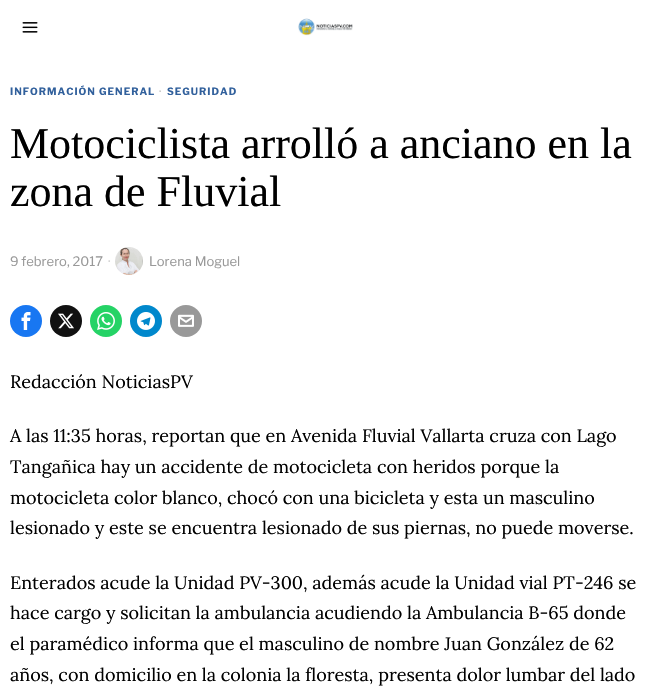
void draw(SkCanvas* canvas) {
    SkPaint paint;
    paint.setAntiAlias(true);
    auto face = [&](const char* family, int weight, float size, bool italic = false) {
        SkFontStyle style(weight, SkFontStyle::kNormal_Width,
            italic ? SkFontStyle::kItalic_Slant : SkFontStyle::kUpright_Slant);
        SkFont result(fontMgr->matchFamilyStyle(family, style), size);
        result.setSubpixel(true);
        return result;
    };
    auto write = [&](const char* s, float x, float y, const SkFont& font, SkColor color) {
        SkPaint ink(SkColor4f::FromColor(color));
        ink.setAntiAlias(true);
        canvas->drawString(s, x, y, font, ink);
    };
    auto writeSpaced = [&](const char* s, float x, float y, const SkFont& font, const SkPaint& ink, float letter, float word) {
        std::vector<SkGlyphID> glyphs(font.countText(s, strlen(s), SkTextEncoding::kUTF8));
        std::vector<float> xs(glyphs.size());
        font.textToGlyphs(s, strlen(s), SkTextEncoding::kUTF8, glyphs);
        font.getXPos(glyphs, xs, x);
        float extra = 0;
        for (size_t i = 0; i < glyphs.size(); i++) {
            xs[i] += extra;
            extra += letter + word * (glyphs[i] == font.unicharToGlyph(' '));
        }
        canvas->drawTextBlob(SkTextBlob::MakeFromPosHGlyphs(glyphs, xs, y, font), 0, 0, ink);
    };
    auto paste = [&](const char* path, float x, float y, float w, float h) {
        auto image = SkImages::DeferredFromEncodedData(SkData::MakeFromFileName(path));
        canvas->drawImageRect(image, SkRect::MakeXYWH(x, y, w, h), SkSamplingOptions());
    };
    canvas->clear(SK_ColorWHITE);
    paste("pic1.png", 22, 22, 16, 11);
    paste("pic2.png", 298, 18, 55, 18);
    auto kFont1 = face("Libre Franklin", 700, 10);
    paint.setColor(SkColorSetRGB(49, 96, 156));
    writeSpaced("INFORMACIÓN GENERAL", 10, 95, kFont1, paint, 1, 0);
    paint.setColor(SkColorSetRGB(204, 204, 204));
    writeSpaced("·", 159, 95, kFont1, paint, 1, 0);
    paint.setColor(SkColorSetRGB(49, 96, 156));
    writeSpaced("SEGURIDAD", 167, 95, kFont1, paint, 1, 0);
    auto kFont2 = face("Tinos", 400, 44);
    write("Motociclista arrolló a anciano en la", 10, 158, kFont2, SK_ColorBLACK);
    write("zona de Fluvial", 10, 206, kFont2, SK_ColorBLACK);
    auto kFont3 = face("Libre Franklin", 400, 13);
    write("9 febrero, 2017", 10, 266, kFont3, SkColorSetRGB(153, 153, 153));
    write("·", 108, 266, kFont3, SkColorSetRGB(204, 204, 204));
    paste("pic3.png", 115, 247, 28, 28);
    write("Lorena Moguel", 149, 266, kFont3, SkColorSetRGB(153, 153, 153));
    paint.setColor(SkColorSetRGB(24, 119, 242));
    canvas->drawCircle(26, 321, 16, paint);
    paste("pic4.png", 21, 312, 10, 18);
    paint.setColor(SkColorSetRGB(17, 17, 17));
    canvas->drawCircle(66, 321, 16, paint);
    paste("pic5.png", 58, 313, 16, 16);
    paint.setColor(SkColorSetRGB(37, 211, 102));
    canvas->drawCircle(106, 321, 16, paint);
    paste("pic6.png", 97, 312, 18, 18);
    paint.setColor(SkColorSetRGB(0, 136, 204));
    canvas->drawCircle(146, 321, 16, paint);
    paste("pic7.png", 137, 312, 18, 18);
    paint.setColor(SkColorSetRGB(153, 153, 153));
    canvas->drawCircle(186, 321, 16, paint);
    paste("pic8.png", 178, 314, 16, 13);
    auto kFont4 = face("Lora", 400, 18);
    write("Redacción NoticiasPV", 10, 388, kFont4, SK_ColorBLACK);
    write("A las 11:35 horas, reportan que en Avenida Fluvial Vallarta cruza con Lago", 10, 442, kFont4, SK_ColorBLACK);
    write("Tangañica hay un accidente de motocicleta con heridos porque la", 10, 473, kFont4, SK_ColorBLACK);
    write("motocicleta color blanco, chocó con una bicicleta y esta un masculino", 10, 504, kFont4, SK_ColorBLACK);
    write("lesionado y este se encuentra lesionado de sus piernas, no puede moverse.", 10, 534, kFont4, SK_ColorBLACK);
    write("Enterados acude la Unidad PV-300, además acude la Unidad vial PT-246 se", 10, 589, kFont4, SK_ColorBLACK);
    write("hace cargo y solicitan la ambulancia acudiendo la Ambulancia B-65 donde", 10, 619, kFont4, SK_ColorBLACK);
    write("el paramédico informa que el masculino de nombre Juan González de 62", 10, 650, kFont4, SK_ColorBLACK);
    write("años, con domicilio en la colonia la floresta, presenta dolor lumbar del lado", 10, 681, kFont4, SK_ColorBLACK);
}
